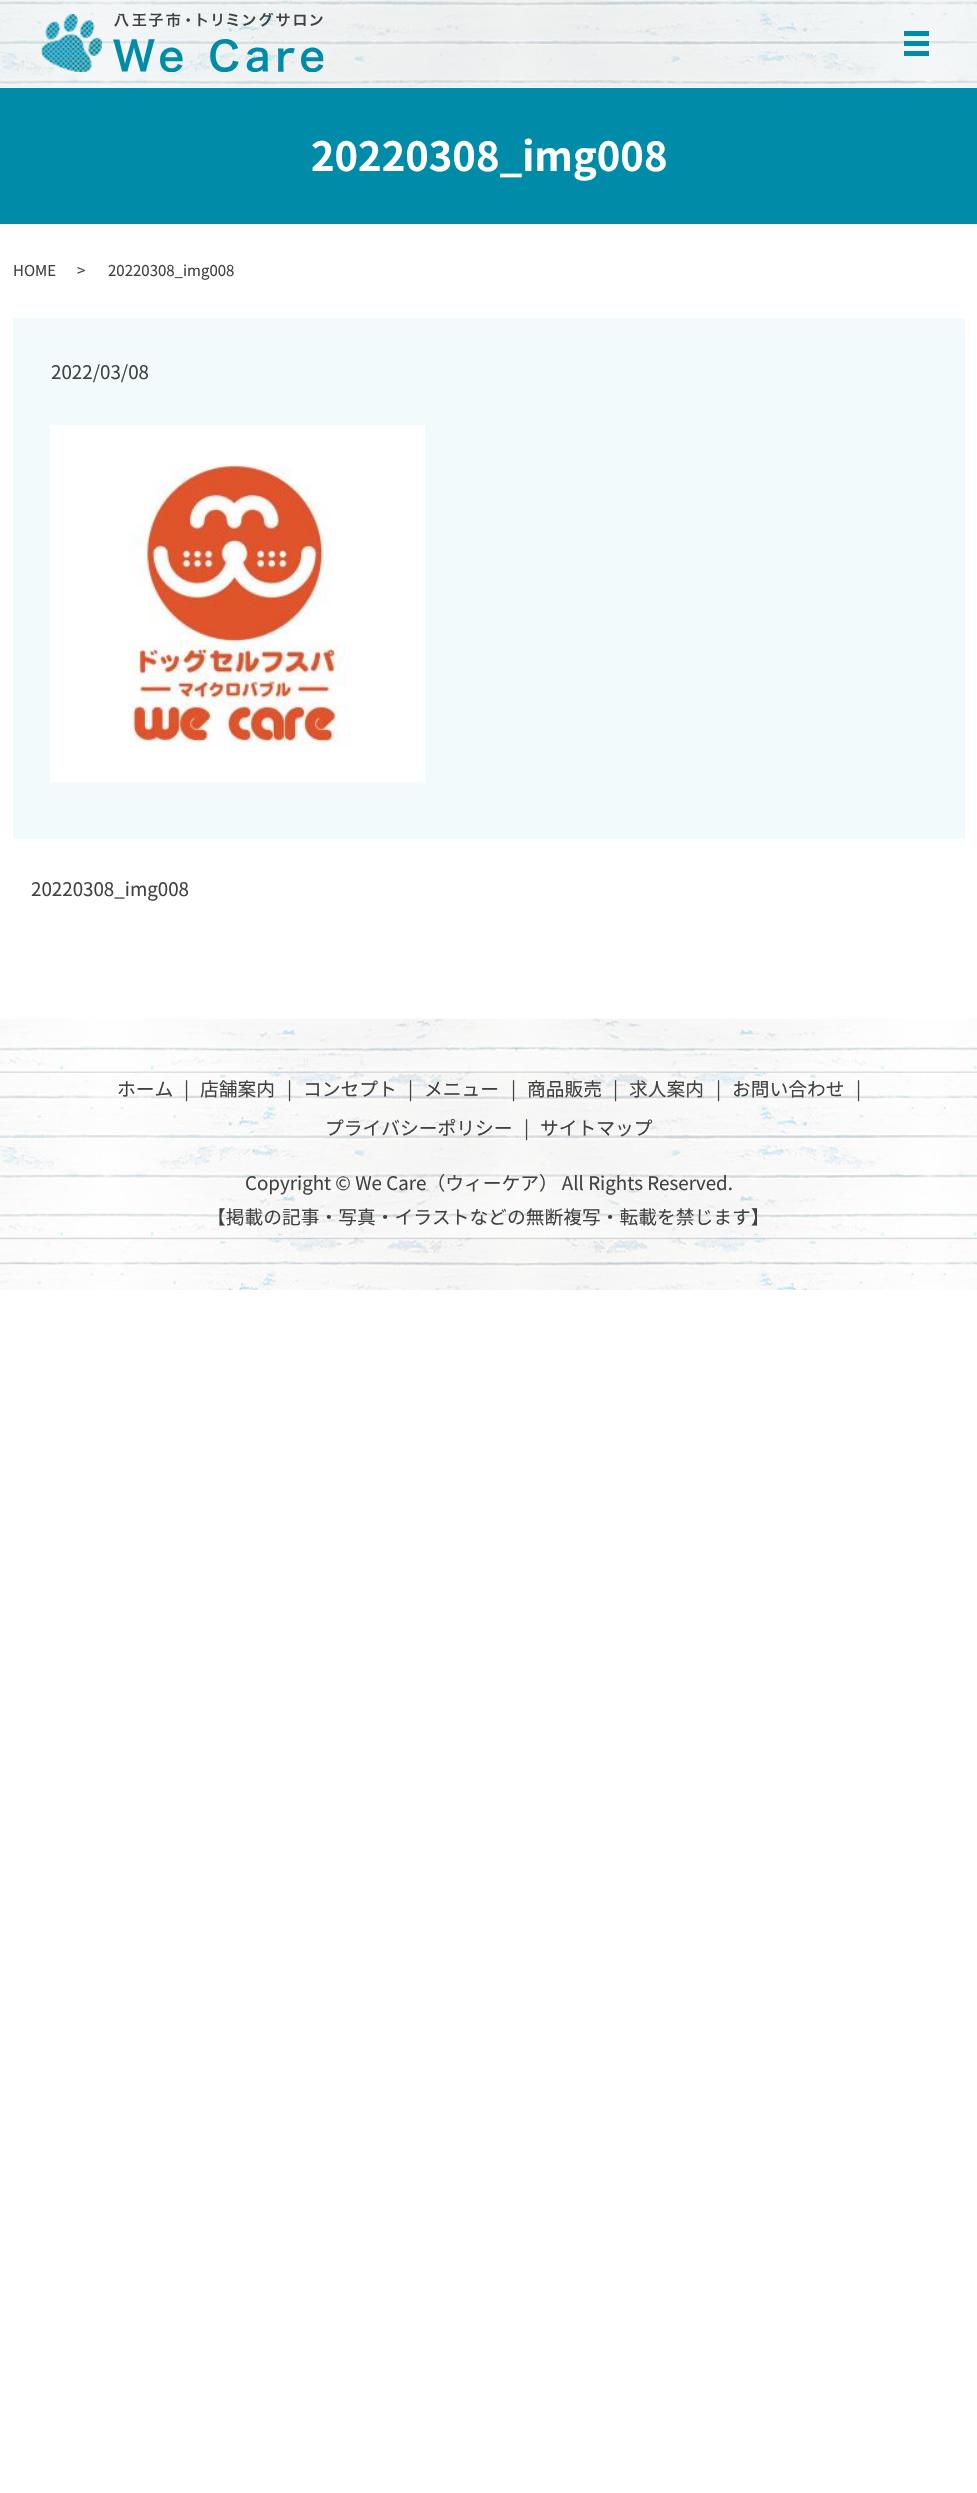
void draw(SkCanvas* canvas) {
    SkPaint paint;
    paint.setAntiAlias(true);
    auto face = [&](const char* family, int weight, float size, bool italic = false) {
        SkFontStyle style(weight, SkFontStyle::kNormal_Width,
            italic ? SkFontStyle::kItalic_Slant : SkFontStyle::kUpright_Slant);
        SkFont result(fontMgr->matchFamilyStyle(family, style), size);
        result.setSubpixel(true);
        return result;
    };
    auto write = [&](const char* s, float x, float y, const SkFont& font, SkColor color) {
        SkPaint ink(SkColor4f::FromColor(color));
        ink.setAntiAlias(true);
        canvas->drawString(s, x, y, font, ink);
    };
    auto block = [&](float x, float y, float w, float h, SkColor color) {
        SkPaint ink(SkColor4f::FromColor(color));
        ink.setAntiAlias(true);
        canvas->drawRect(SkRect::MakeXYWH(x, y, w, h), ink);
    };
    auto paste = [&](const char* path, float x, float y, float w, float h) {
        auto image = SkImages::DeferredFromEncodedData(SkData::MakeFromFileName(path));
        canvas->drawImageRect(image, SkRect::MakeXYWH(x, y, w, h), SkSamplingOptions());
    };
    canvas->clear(SK_ColorWHITE);
    paste("pic1.png", 0, 0, 977, 88);
    paste("pic2.png", 41, 13, 283, 60);
    block(904, 31, 25, 5, SkColorSetRGB(0, 140, 168));
    block(904, 41, 25, 5, SkColorSetRGB(0, 140, 168));
    block(904, 51, 25, 5, SkColorSetRGB(0, 140, 168));
    block(0, 88, 977, 136, SkColorSetRGB(0, 140, 168));
    auto kFont1 = face("Noto Sans JP", 700, 40);
    write("20220308_img008", 311, 171, kFont1, SK_ColorWHITE);
    auto kFont2 = face("Noto Sans JP", 400, 15);
    write("HOME", 13, 276, kFont2, SkColorSetRGB(65, 65, 65));
    write(">", 77, 276, kFont2, SkColorSetRGB(65, 65, 65));
    write("20220308_img008", 108, 276, kFont2, SkColorSetRGB(65, 65, 65));
    block(13, 318, 952, 521, SkColorSetRGB(243, 250, 251));
    auto kFont3 = face("Noto Sans JP", 400, 18.75f);
    write("2022/03/08", 51, 379, kFont3, SkColorSetRGB(65, 65, 65));
    paste("pic3.png", 50, 425, 375, 358);
    write("20220308_img008", 31, 896, kFont3, SkColorSetRGB(65, 65, 65));
    paste("pic4.png", 0, 1018, 977, 272);
    write("|", 184, 1096, kFont3, SkColorSetRGB(65, 65, 65));
    write("店舗案内", 200, 1096, kFont3, SkColorSetRGB(65, 65, 65));
    write("|", 287, 1096, kFont3, SkColorSetRGB(65, 65, 65));
    write("コンセプト", 303, 1096, kFont3, SkColorSetRGB(65, 65, 65));
    write("|", 856, 1096, kFont3, SkColorSetRGB(65, 65, 65));
    write("プライバシーポリシー", 325, 1135, kFont3, SkColorSetRGB(65, 65, 65));
    write("ホーム", 117, 1096, kFont3, SkColorSetRGB(65, 65, 65));
    write("|", 408, 1096, kFont3, SkColorSetRGB(65, 65, 65));
    write("メニュー", 424, 1096, kFont3, SkColorSetRGB(65, 65, 65));
    write("|", 511, 1096, kFont3, SkColorSetRGB(65, 65, 65));
    write("商品販売", 527, 1096, kFont3, SkColorSetRGB(65, 65, 65));
    write("|", 613, 1096, kFont3, SkColorSetRGB(65, 65, 65));
    write("求人案内", 629, 1096, kFont3, SkColorSetRGB(65, 65, 65));
    write("|", 716, 1096, kFont3, SkColorSetRGB(65, 65, 65));
    write("お問い合わせ", 732, 1096, kFont3, SkColorSetRGB(65, 65, 65));
    write("|", 524, 1135, kFont3, SkColorSetRGB(65, 65, 65));
    write("サイトマップ", 540, 1135, kFont3, SkColorSetRGB(65, 65, 65));
    write("Copyright © We Care（ウィーケア） All Rights Reserved.", 245, 1190, kFont3, SkColorSetRGB(65, 65, 65));
    write("【掲載の記事・写真・イラストなどの無断複写・転載を禁じます】", 207, 1224, kFont3, SkColorSetRGB(65, 65, 65));
}
